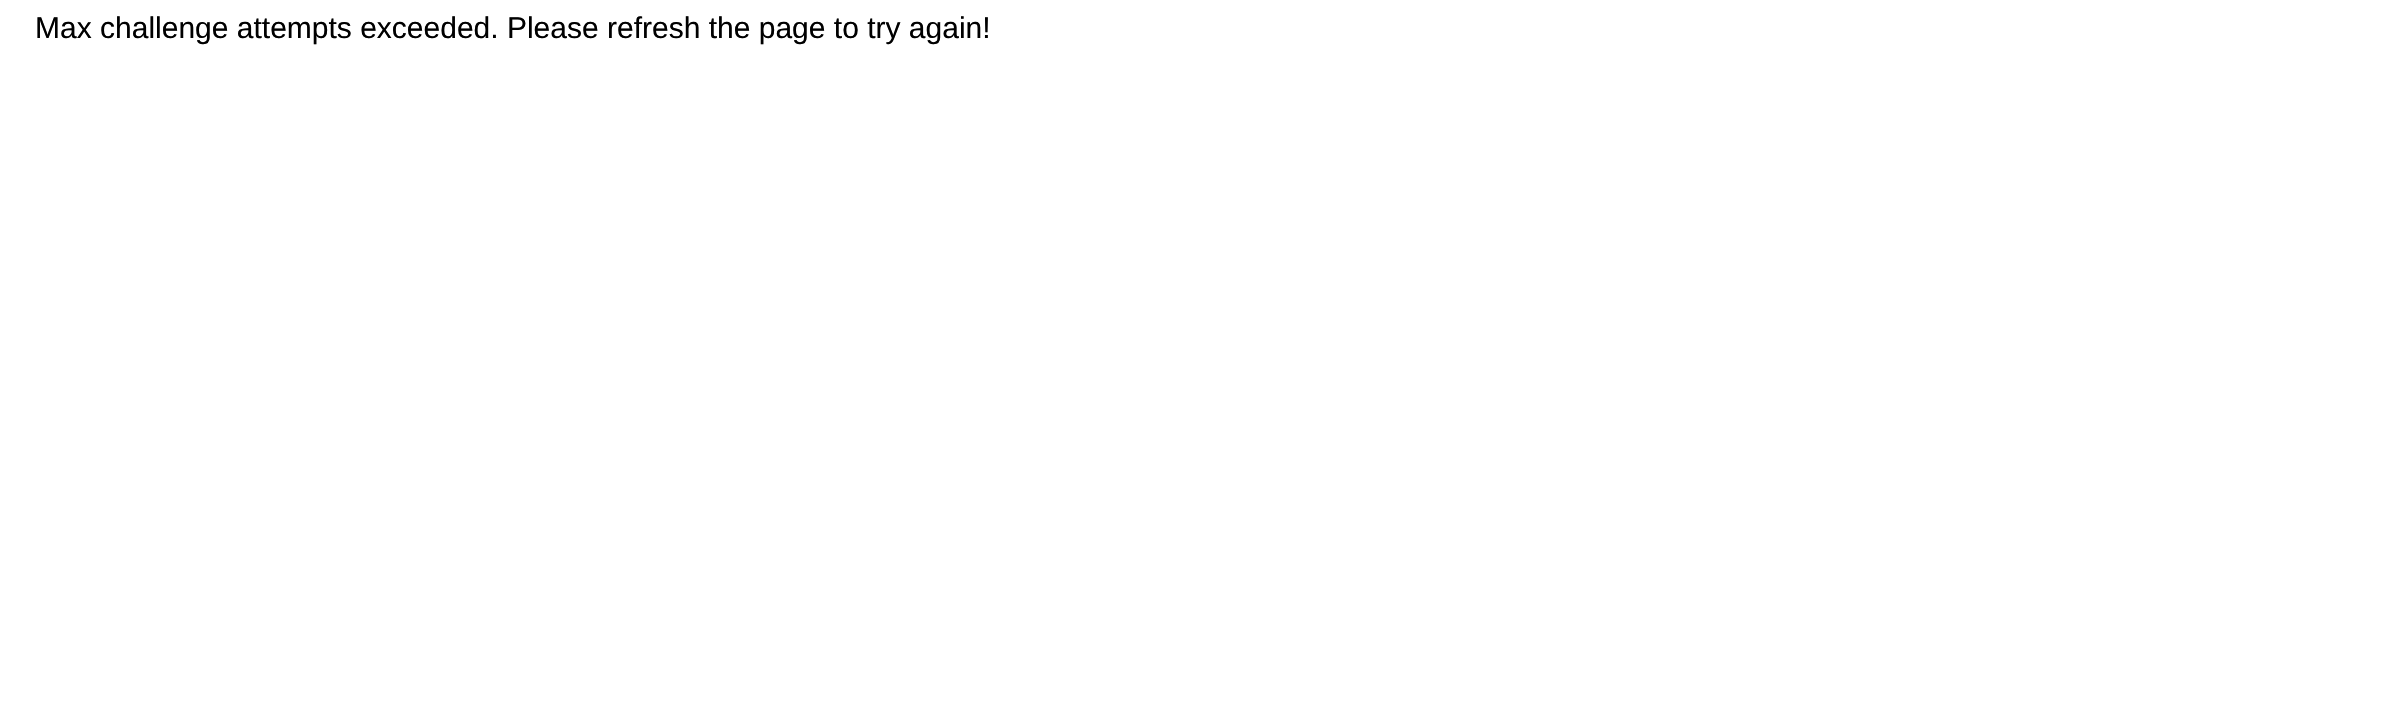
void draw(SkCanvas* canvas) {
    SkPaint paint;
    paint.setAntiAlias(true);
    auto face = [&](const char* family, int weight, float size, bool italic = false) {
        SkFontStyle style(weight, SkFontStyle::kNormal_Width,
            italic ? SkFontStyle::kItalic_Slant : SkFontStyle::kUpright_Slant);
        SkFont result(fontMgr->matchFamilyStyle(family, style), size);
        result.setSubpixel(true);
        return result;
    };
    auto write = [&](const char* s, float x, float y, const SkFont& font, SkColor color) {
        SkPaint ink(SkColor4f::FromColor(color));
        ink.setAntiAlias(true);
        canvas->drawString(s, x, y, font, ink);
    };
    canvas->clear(SK_ColorWHITE);
    auto kFont1 = face("Liberation Sans", 400, 30);
    write("Max challenge attempts exceeded. Please refresh the page to try again!", 35, 38, kFont1, SK_ColorBLACK);
}
